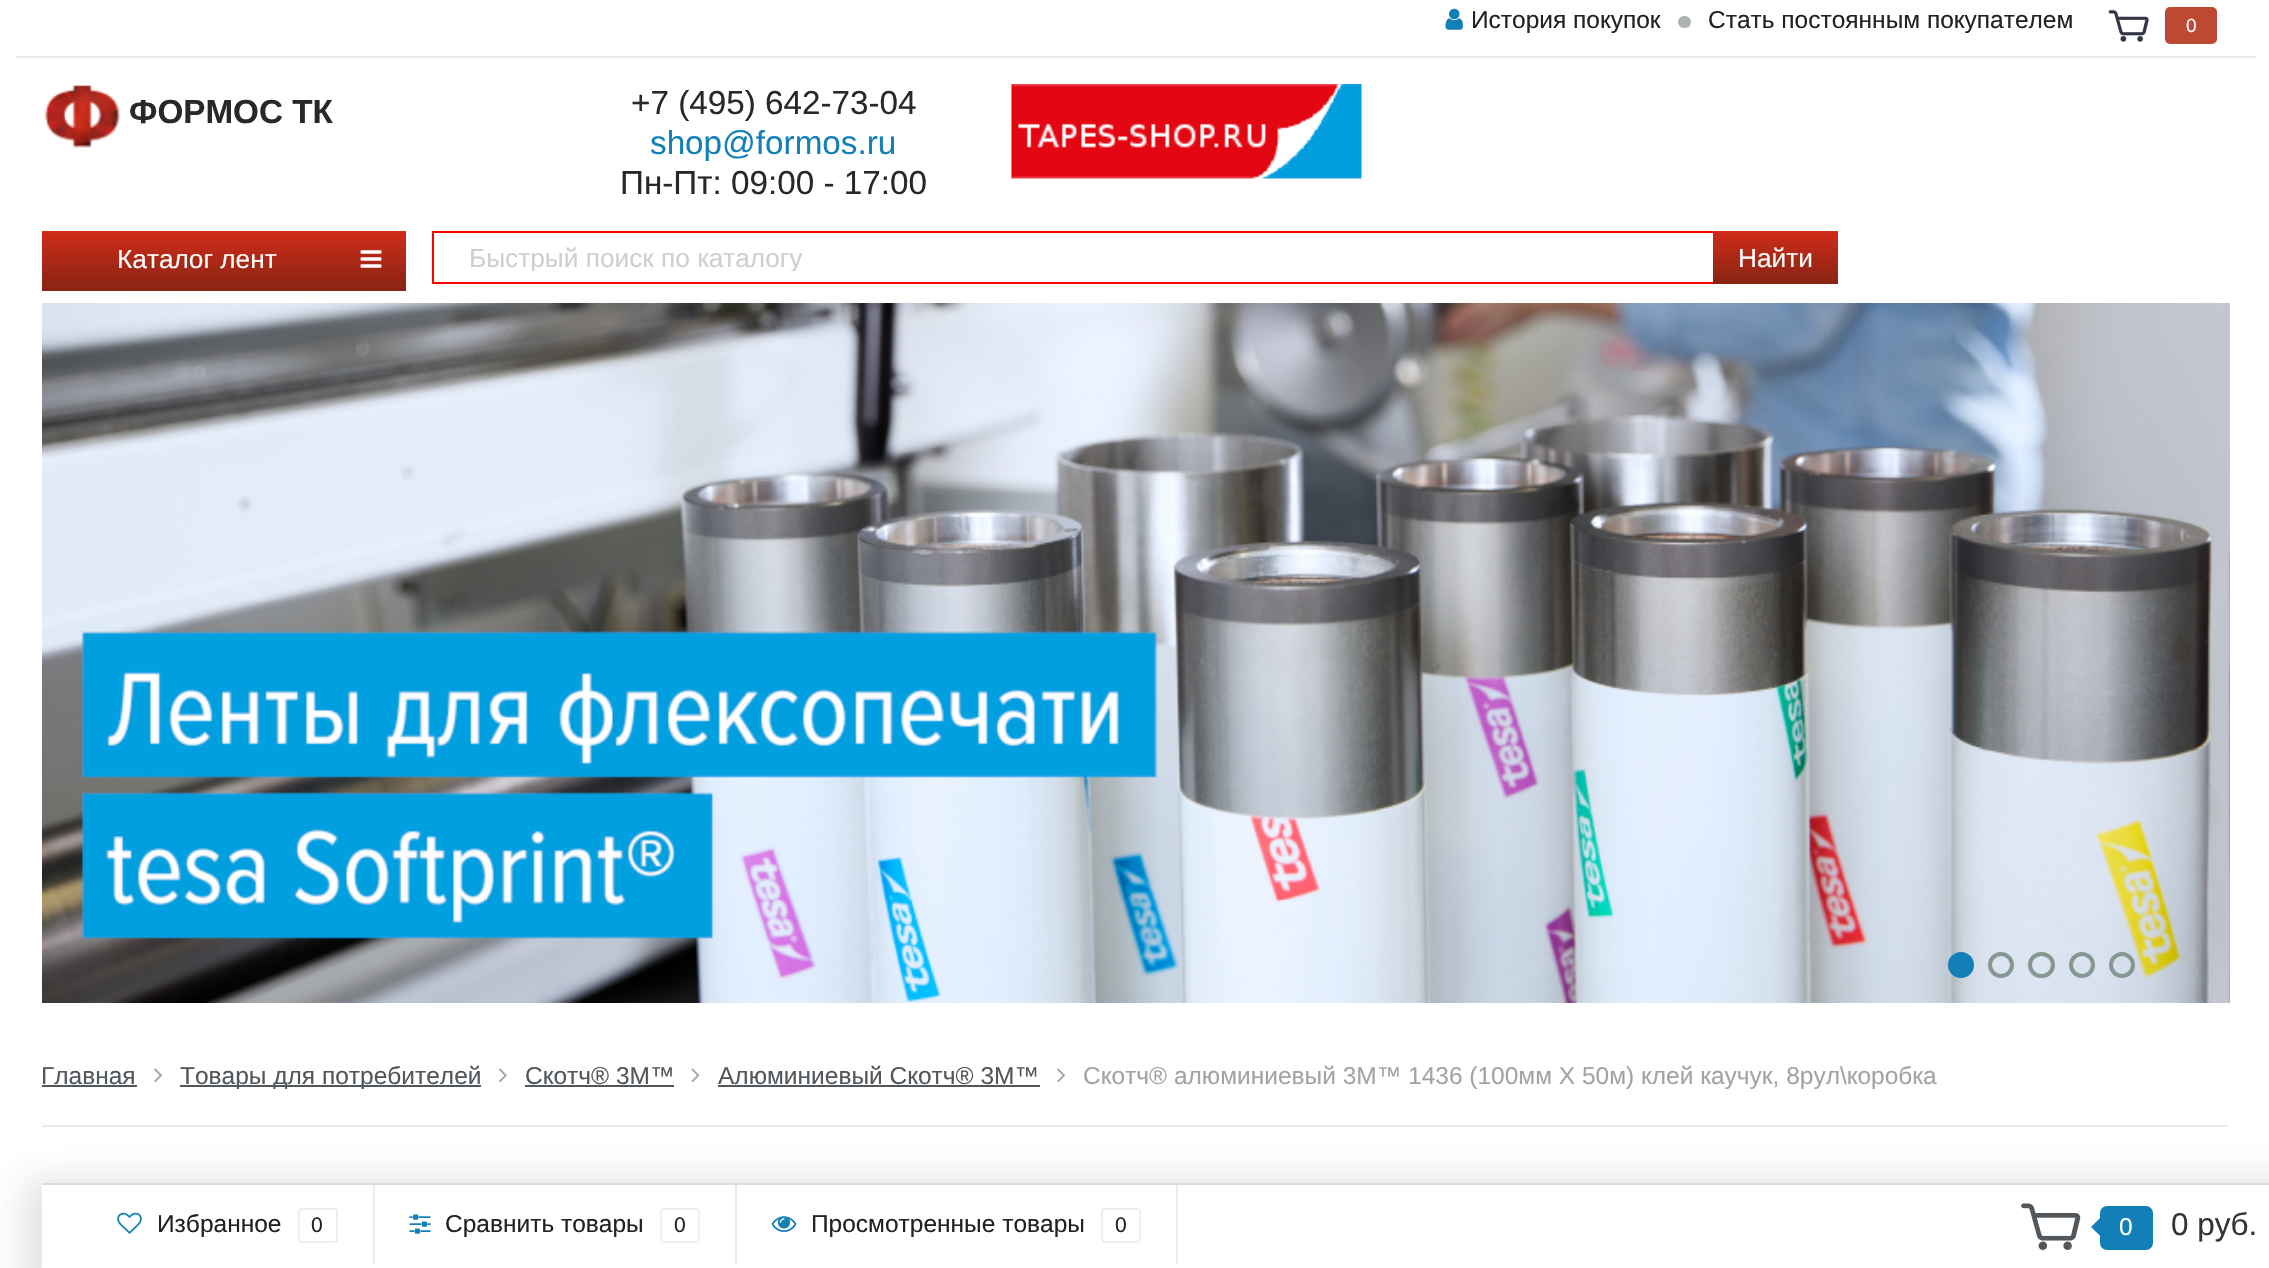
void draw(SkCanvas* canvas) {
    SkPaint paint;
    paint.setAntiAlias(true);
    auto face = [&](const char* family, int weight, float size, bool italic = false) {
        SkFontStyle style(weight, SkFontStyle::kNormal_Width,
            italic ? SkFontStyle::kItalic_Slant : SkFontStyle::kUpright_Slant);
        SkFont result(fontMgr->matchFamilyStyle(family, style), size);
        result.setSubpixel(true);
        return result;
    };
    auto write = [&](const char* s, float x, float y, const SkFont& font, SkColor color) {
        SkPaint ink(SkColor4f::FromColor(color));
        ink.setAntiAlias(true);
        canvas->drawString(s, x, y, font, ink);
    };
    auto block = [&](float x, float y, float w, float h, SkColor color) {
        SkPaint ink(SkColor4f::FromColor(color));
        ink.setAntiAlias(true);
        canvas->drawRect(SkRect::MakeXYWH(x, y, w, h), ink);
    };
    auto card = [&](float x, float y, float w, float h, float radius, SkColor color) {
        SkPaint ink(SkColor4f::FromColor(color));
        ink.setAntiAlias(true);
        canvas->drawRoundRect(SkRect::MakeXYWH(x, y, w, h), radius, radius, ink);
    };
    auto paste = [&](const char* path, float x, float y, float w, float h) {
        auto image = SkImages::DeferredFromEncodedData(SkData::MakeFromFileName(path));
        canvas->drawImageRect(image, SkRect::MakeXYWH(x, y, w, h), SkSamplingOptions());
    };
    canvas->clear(SK_ColorWHITE);
    block(16, 56, 2240, 2, SkColorSetRGB(234, 234, 234));
    paste("pic1.png", 1445, 8, 18, 22);
    auto kFont1 = face("Liberation Sans", 400, 24.5f);
    write("История покупок", 1471, 28, kFont1, SkColorSetRGB(34, 34, 34));
    card(1678, 16, 13, 12, 6, SkColorSetRGB(172, 179, 180));
    write("Стать постоянным покупателем", 1708, 28, kFont1, SkColorSetRGB(34, 34, 34));
    paste("pic2.png", 2108, 10, 41, 32);
    paint.setColor(SkColorSetRGB(189, 73, 50));
    canvas->drawRoundRect(SkRect::MakeXYWH(2168.5f, 10.5f, 45, 30), 1.5f, 1.5f, paint);
    paint.setStyle(SkPaint::kStroke_Style);
    paint.setStrokeWidth(7);
    canvas->drawRoundRect(SkRect::MakeXYWH(2168.5f, 10.5f, 45, 30), 1.5f, 1.5f, paint);
    auto kFont2 = face("Liberation Sans", 400, 19);
    write("0", 2186, 32, kFont2, SK_ColorWHITE);
    paste("pic3.png", 45, 85, 75, 63);
    auto kFont3 = face("Liberation Sans", 700, 33.25f);
    write("ФОРМОС ТК", 129, 123, kFont3, SkColorSetRGB(40, 40, 40));
    auto kFont4 = face("Liberation Sans", 400, 33.25f);
    write("+7 (495) 642-73-04", 631, 114, kFont4, SkColorSetRGB(40, 40, 40));
    write("shop@formos.ru", 650, 154, kFont4, SkColorSetRGB(19, 127, 183));
    write("Пн-Пт: 09:00 - 17:00", 620, 194, kFont4, SkColorSetRGB(40, 40, 40));
    paste("pic4.png", 1011, 84, 351, 95);
    paint.setStyle(SkPaint::kFill_Style);
    {
        const SkColor colors[] = {SkColorSetRGB(207, 44, 25), SkColorSetRGB(136, 36, 19)};
        const float stops[] = {0, 1};
        const SkPoint ends[] = {{224, 231}, {224, 291}};
        paint.setShader(SkGradientShader::MakeLinear(ends, colors, stops, 2, SkTileMode::kClamp));
        paint.setAlpha(255);
    }
    canvas->drawRect(SkRect::MakeXYWH(42, 231, 364, 60), paint);
    auto kFont5 = face("Liberation Sans", 400, 26.25f);
    write("Каталог лент", 117, 268, kFont5, SK_ColorWHITE);
    paste("pic5.png", 360, 250, 22, 18);
    paint.setStyle(SkPaint::kStroke_Style);
    paint.setStrokeWidth(2);
    paint.setShader(nullptr);
    paint.setColor(SkColorSetRGB(255, 0, 0));
    canvas->drawRect(SkRect::MakeXYWH(433, 232, 1404, 51), paint);
    canvas->save();
    canvas->clipRect(SkRect::MakeXYWH(469, 242, 1332, 29));
    write("Быстрый поиск по каталогу", 469, 267, kFont5, SkColorSetRGB(207, 207, 207));
    canvas->restore();
    paint.setStyle(SkPaint::kFill_Style);
    {
        const SkColor colors[] = {SkColorSetRGB(207, 44, 25), SkColorSetRGB(136, 36, 19)};
        const float stops[] = {0, 1};
        const SkPoint ends[] = {{1775, 231}, {1775, 284}};
        paint.setShader(SkGradientShader::MakeLinear(ends, colors, stops, 2, SkTileMode::kClamp));
        paint.setAlpha(255);
    }
    canvas->drawRect(SkRect::MakeXYWH(1713, 231, 125, 53), paint);
    write("Найти", 1738, 267, kFont5, SK_ColorWHITE);
    paste("pic6.png", 42, 303, 2188, 700);
    paste("pic7.png", 2228, 303, 2, 700);
    paint.setShader(nullptr);
    paint.setColor(SkColorSetRGB(19, 127, 183));
    canvas->drawCircle(1961, 965, 11, paint);
    paint.setStyle(SkPaint::kStroke_Style);
    paint.setStrokeWidth(4);
    canvas->drawCircle(1961, 965, 11, paint);
    paint.setColor(SkColorSetRGB(134, 151, 145));
    canvas->drawCircle(2001, 965, 11, paint);
    canvas->drawRoundRect(SkRect::MakeXYWH(2030, 954, 23, 22), 11, 11, paint);
    canvas->drawCircle(2082, 965, 11, paint);
    canvas->drawCircle(2122, 965, 11, paint);
    write("Главная", 41, 1084, kFont1, SkColorSetRGB(82, 87, 91));
    block(42, 1085, 95, 2, SkColorSetRGB(82, 87, 91));
    paste("pic8.png", 154, 1068, 8, 15);
    block(180, 1085, 301, 2, SkColorSetRGB(82, 87, 91));
    write("Товары для потребителей", 180, 1084, kFont1, SkColorSetRGB(82, 87, 91));
    paste("pic9.png", 499, 1068, 8, 15);
    write("Скотч® 3М™", 525, 1084, kFont1, SkColorSetRGB(82, 87, 91));
    block(525, 1085, 149, 2, SkColorSetRGB(82, 87, 91));
    paste("pic10.png", 691, 1068, 9, 15);
    write("Алюминиевый Скотч® 3М™", 718, 1084, kFont1, SkColorSetRGB(82, 87, 91));
    block(718, 1085, 322, 2, SkColorSetRGB(82, 87, 91));
    paste("pic8.png", 1057, 1068, 8, 15);
    write("Скотч® алюминиевый 3M™ 1436 (100мм Х 50м) клей каучук, 8рул\\коробка", 1083, 1084, kFont1, SkColorSetRGB(163, 163, 163));
    block(42, 1125, 2186, 2, SkColorSetRGB(234, 234, 234));
    paint.setStyle(SkPaint::kFill_Style);
    paint.setColor(SkColorSetARGB(38, 50, 50, 50));
    paint.setMaskFilter(SkMaskFilter::MakeBlur(kNormal_SkBlurStyle, 17.5f));
    canvas->drawRect(SkRect::MakeXYWH(26, 1180, 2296, 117), paint);
    paint.setMaskFilter(nullptr);
    block(42, 1185, 2227, 83, SK_ColorWHITE);
    block(42, 1183, 2227, 2, SkColorSetRGB(219, 219, 219));
    block(373, 1185, 2, 79, SkColorSetRGB(237, 237, 237));
    paste("pic11.png", 117, 1212, 25, 22);
    write("Избранное", 157, 1232, kFont1, SkColorSetRGB(34, 34, 34));
    paint.setStyle(SkPaint::kStroke_Style);
    paint.setStrokeWidth(2);
    paint.setColor(SkColorSetRGB(238, 238, 238));
    canvas->drawRoundRect(SkRect::MakeXYWH(299, 1209, 38, 33), 3, 3, paint);
    auto kFont6 = face("Liberation Sans", 400, 21);
    write("0", 311, 1232, kFont6, SkColorSetRGB(34, 34, 34));
    block(735, 1185, 2, 79, SkColorSetRGB(237, 237, 237));
    paste("pic12.png", 409, 1214, 22, 20);
    write("Сравнить товары", 445, 1232, kFont1, SkColorSetRGB(34, 34, 34));
    canvas->drawRoundRect(SkRect::MakeXYWH(661, 1209, 38, 33), 3, 3, paint);
    write("0", 674, 1232, kFont6, SkColorSetRGB(34, 34, 34));
    block(1176, 1185, 2, 79, SkColorSetRGB(237, 237, 237));
    paste("pic13.png", 771, 1216, 26, 16);
    write("Просмотренные товары", 811, 1232, kFont1, SkColorSetRGB(34, 34, 34));
    canvas->drawRoundRect(SkRect::MakeXYWH(1102, 1209, 38, 33), 3, 3, paint);
    write("0", 1115, 1232, kFont6, SkColorSetRGB(34, 34, 34));
    paste("pic14.png", 2021, 1203, 60, 47);
    paint.setStyle(SkPaint::kFill_Style);
    paint.setColor(SkColorSetRGB(19, 127, 183));
    canvas->drawRoundRect(SkRect::MakeXYWH(2103.5f, 1209.5f, 46, 37), 3.5f, 3.5f, paint);
    paint.setStyle(SkPaint::kStroke_Style);
    paint.setStrokeWidth(7);
    canvas->drawRoundRect(SkRect::MakeXYWH(2103.5f, 1209.5f, 46, 37), 3.5f, 3.5f, paint);
    paint.setStyle(SkPaint::kFill_Style);
    canvas->drawPath(SkPathBuilder().moveTo(2107, 1211).lineTo(2107, 1242.5f).lineTo(2091, 1227).close().detach(), paint);
    write("0", 2119, 1235, kFont1, SK_ColorWHITE);
    auto kFont7 = face("Liberation Sans", 400, 31.5f);
    write("0 руб.", 2171, 1235, kFont7, SkColorSetRGB(52, 52, 52));
}
